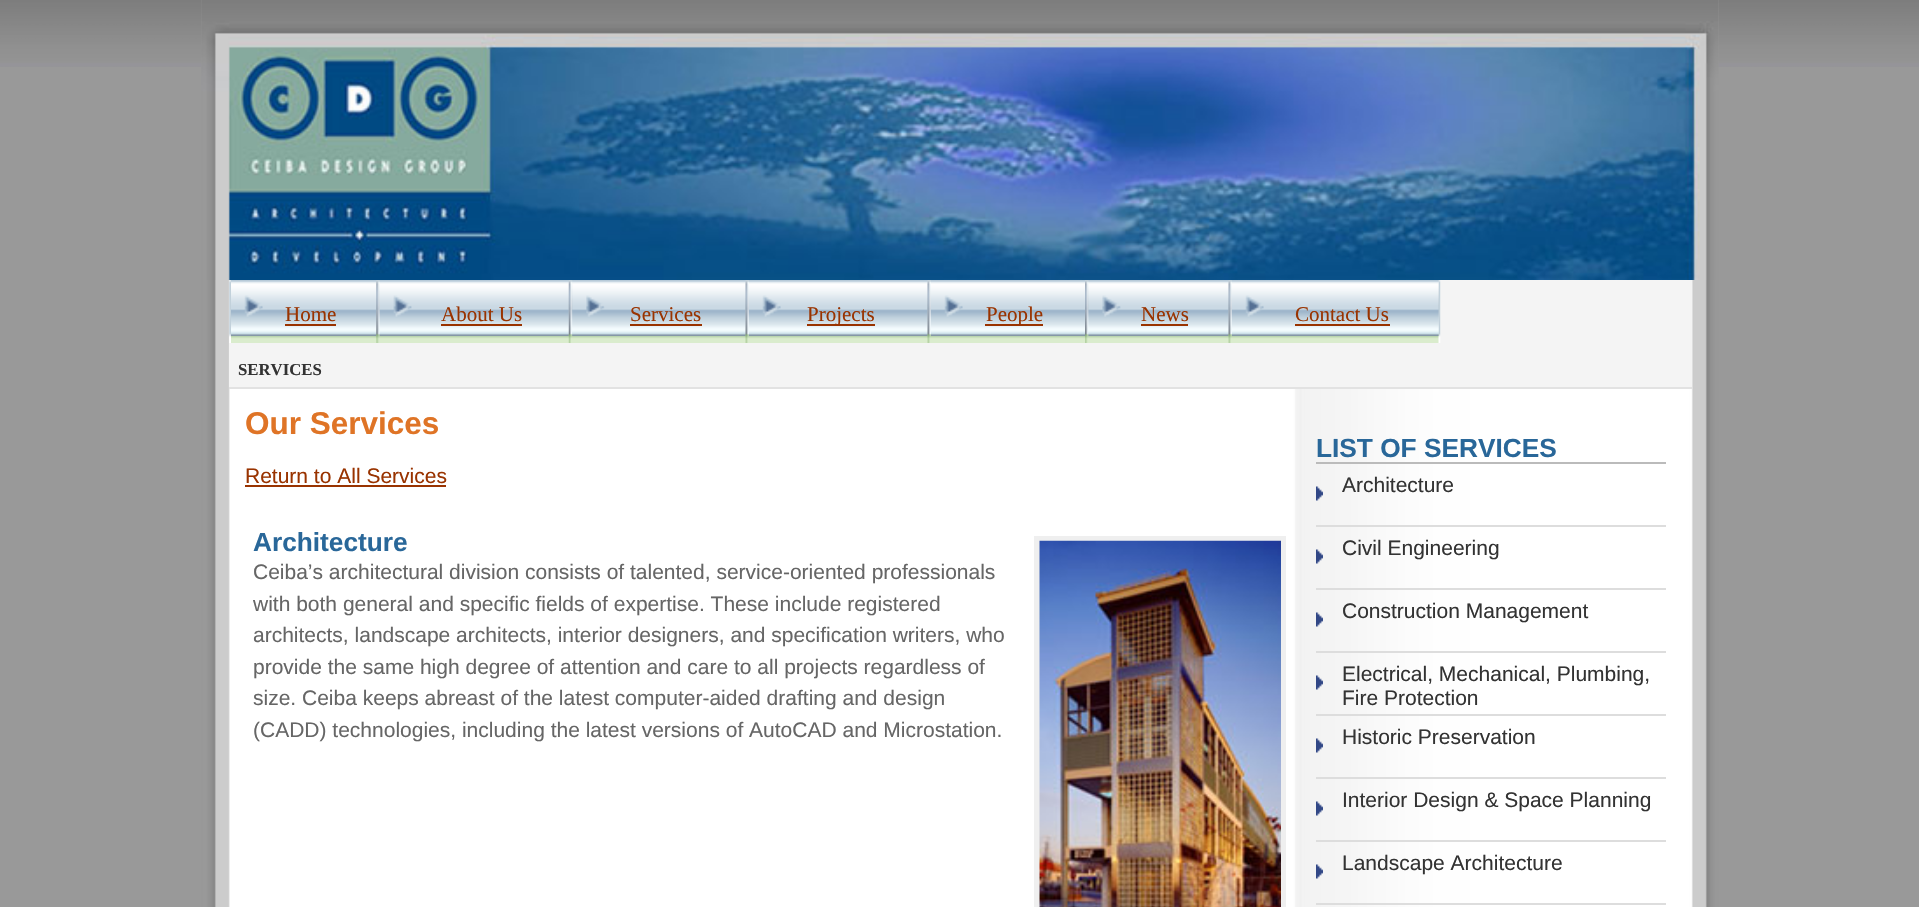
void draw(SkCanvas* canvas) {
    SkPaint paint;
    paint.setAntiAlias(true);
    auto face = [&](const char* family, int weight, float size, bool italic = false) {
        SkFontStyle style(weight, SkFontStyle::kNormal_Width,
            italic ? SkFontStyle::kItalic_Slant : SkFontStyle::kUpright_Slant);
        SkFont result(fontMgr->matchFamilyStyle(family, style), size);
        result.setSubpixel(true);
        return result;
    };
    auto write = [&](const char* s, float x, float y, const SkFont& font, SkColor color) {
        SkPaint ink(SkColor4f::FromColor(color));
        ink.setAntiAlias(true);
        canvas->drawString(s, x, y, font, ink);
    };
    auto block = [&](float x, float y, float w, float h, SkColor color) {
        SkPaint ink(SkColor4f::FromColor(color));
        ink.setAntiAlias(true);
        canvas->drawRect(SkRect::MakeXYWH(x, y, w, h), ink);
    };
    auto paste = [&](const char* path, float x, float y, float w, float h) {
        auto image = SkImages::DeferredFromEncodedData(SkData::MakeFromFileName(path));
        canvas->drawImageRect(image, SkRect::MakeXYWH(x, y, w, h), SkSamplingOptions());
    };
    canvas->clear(SkColorSetRGB(153, 153, 153));
    paste("pic1.png", 0, 0, 1919, 67);
    paste("pic2.png", 201, 0, 1518, 907);
    paste("pic3.png", 201, 0, 1518, 280);
    block(229, 280, 1463, 107, SkColorSetRGB(244, 244, 244));
    paste("pic4.png", 229, 280, 1212, 63);
    paste("pic5.png", 231, 280, 1208, 63);
    paste("pic6.png", 231, 280, 146, 56);
    paste("pic7.png", 244, 295, 19, 22);
    auto kFont1 = face("Liberation Serif", 400, 21);
    write("Home", 285, 321, kFont1, SkColorSetRGB(153, 51, 0));
    block(285, 324, 51, 2, SkColorSetRGB(153, 51, 0));
    paste("pic8.png", 376, 281, 4, 62);
    paste("pic9.png", 379, 280, 190, 56);
    paste("pic10.png", 393, 295, 19, 22);
    write("About Us", 441, 321, kFont1, SkColorSetRGB(153, 51, 0));
    block(441, 324, 81, 2, SkColorSetRGB(153, 51, 0));
    paste("pic11.png", 568, 281, 5, 62);
    paste("pic12.png", 572, 280, 174, 56);
    paste("pic13.png", 586, 295, 19, 22);
    write("Services", 630, 321, kFont1, SkColorSetRGB(153, 51, 0));
    block(630, 324, 72, 2, SkColorSetRGB(153, 51, 0));
    paste("pic14.png", 745, 281, 4, 62);
    paste("pic15.png", 749, 280, 179, 56);
    paste("pic7.png", 762, 295, 19, 22);
    block(807, 324, 68, 2, SkColorSetRGB(153, 51, 0));
    write("Projects", 807, 321, kFont1, SkColorSetRGB(153, 51, 0));
    paste("pic14.png", 927, 281, 4, 62);
    paste("pic16.png", 931, 280, 154, 56);
    paste("pic7.png", 944, 295, 19, 22);
    block(985, 324, 58, 2, SkColorSetRGB(153, 51, 0));
    write("People", 986, 321, kFont1, SkColorSetRGB(153, 51, 0));
    paste("pic17.png", 1085, 281, 4, 62);
    paste("pic18.png", 1088, 280, 141, 56);
    paste("pic19.png", 1102, 295, 19, 22);
    write("News", 1141, 321, kFont1, SkColorSetRGB(153, 51, 0));
    block(1141, 324, 47, 2, SkColorSetRGB(153, 51, 0));
    paste("pic14.png", 1228, 281, 4, 62);
    paste("pic20.png", 1232, 280, 207, 56);
    paste("pic7.png", 1245, 295, 19, 22);
    write("Contact Us", 1295, 321, kFont1, SkColorSetRGB(153, 51, 0));
    block(1295, 324, 95, 2, SkColorSetRGB(153, 51, 0));
    block(229, 387, 1463, 2, SkColorSetRGB(226, 226, 226));
    auto kFont2 = face("Liberation Serif", 700, 16.75f);
    write("SERVICES", 238, 375, kFont2, SkColorSetRGB(51, 51, 51));
    auto kFont3 = face("Liberation Sans", 700, 31.5f);
    write("Our Services", 245, 434, kFont3, SkColorSetRGB(223, 116, 38));
    auto kFont4 = face("Liberation Sans", 400, 21);
    write("Return to All Services", 245, 483, kFont4, SkColorSetRGB(153, 51, 0));
    block(245, 485, 201, 2, SkColorSetRGB(153, 51, 0));
    auto kFont5 = face("Liberation Sans", 700, 26.25f);
    write("Architecture", 253, 551, kFont5, SkColorSetRGB(41, 103, 153));
    block(1034, 536, 252, 371, SkColorSetRGB(239, 239, 239));
    paste("pic21.png", 1039, 540, 242, 367);
    write("Ceiba’s architectural division consists of talented, service-oriented professionals", 253, 579, kFont4, SkColorSetRGB(102, 102, 102));
    write("with both general and specific fields of expertise. These include registered", 253, 611, kFont4, SkColorSetRGB(102, 102, 102));
    write("architects, landscape architects, interior designers, and specification writers, who", 253, 642, kFont4, SkColorSetRGB(102, 102, 102));
    write("provide the same high degree of attention and care to all projects regardless of", 253, 674, kFont4, SkColorSetRGB(102, 102, 102));
    write("size. Ceiba keeps abreast of the latest computer-aided drafting and design", 253, 705, kFont4, SkColorSetRGB(102, 102, 102));
    write("(CADD) technologies, including the latest versions of AutoCAD and Microstation.", 253, 737, kFont4, SkColorSetRGB(102, 102, 102));
    block(1316, 462, 350, 2, SkColorSetRGB(187, 187, 187));
    write("LIST OF SERVICES", 1316, 457, kFont5, SkColorSetRGB(41, 103, 153));
    paste("pic22.png", 1316, 486, 7, 15);
    block(1316, 525, 350, 2, SkColorSetRGB(221, 221, 221));
    write("Architecture", 1342, 492, kFont4, SkColorSetRGB(51, 51, 51));
    paste("pic22.png", 1316, 549, 7, 15);
    block(1316, 588, 350, 2, SkColorSetRGB(221, 221, 221));
    write("Civil Engineering", 1342, 555, kFont4, SkColorSetRGB(51, 51, 51));
    paste("pic22.png", 1316, 612, 7, 15);
    block(1316, 651, 350, 2, SkColorSetRGB(221, 221, 221));
    write("Construction Management", 1342, 618, kFont4, SkColorSetRGB(51, 51, 51));
    paste("pic22.png", 1316, 675, 7, 15);
    block(1316, 714, 350, 2, SkColorSetRGB(221, 221, 221));
    write("Electrical, Mechanical, Plumbing,", 1342, 681, kFont4, SkColorSetRGB(51, 51, 51));
    write("Fire Protection", 1342, 705, kFont4, SkColorSetRGB(51, 51, 51));
    paste("pic22.png", 1316, 738, 7, 15);
    block(1316, 777, 350, 2, SkColorSetRGB(221, 221, 221));
    write("Historic Preservation", 1342, 744, kFont4, SkColorSetRGB(51, 51, 51));
    paste("pic22.png", 1316, 801, 7, 15);
    block(1316, 840, 350, 2, SkColorSetRGB(221, 221, 221));
    write("Interior Design & Space Planning", 1342, 807, kFont4, SkColorSetRGB(51, 51, 51));
    paste("pic22.png", 1316, 864, 7, 15);
    block(1316, 903, 350, 2, SkColorSetRGB(221, 221, 221));
    write("Landscape Architecture", 1342, 870, kFont4, SkColorSetRGB(51, 51, 51));
}
